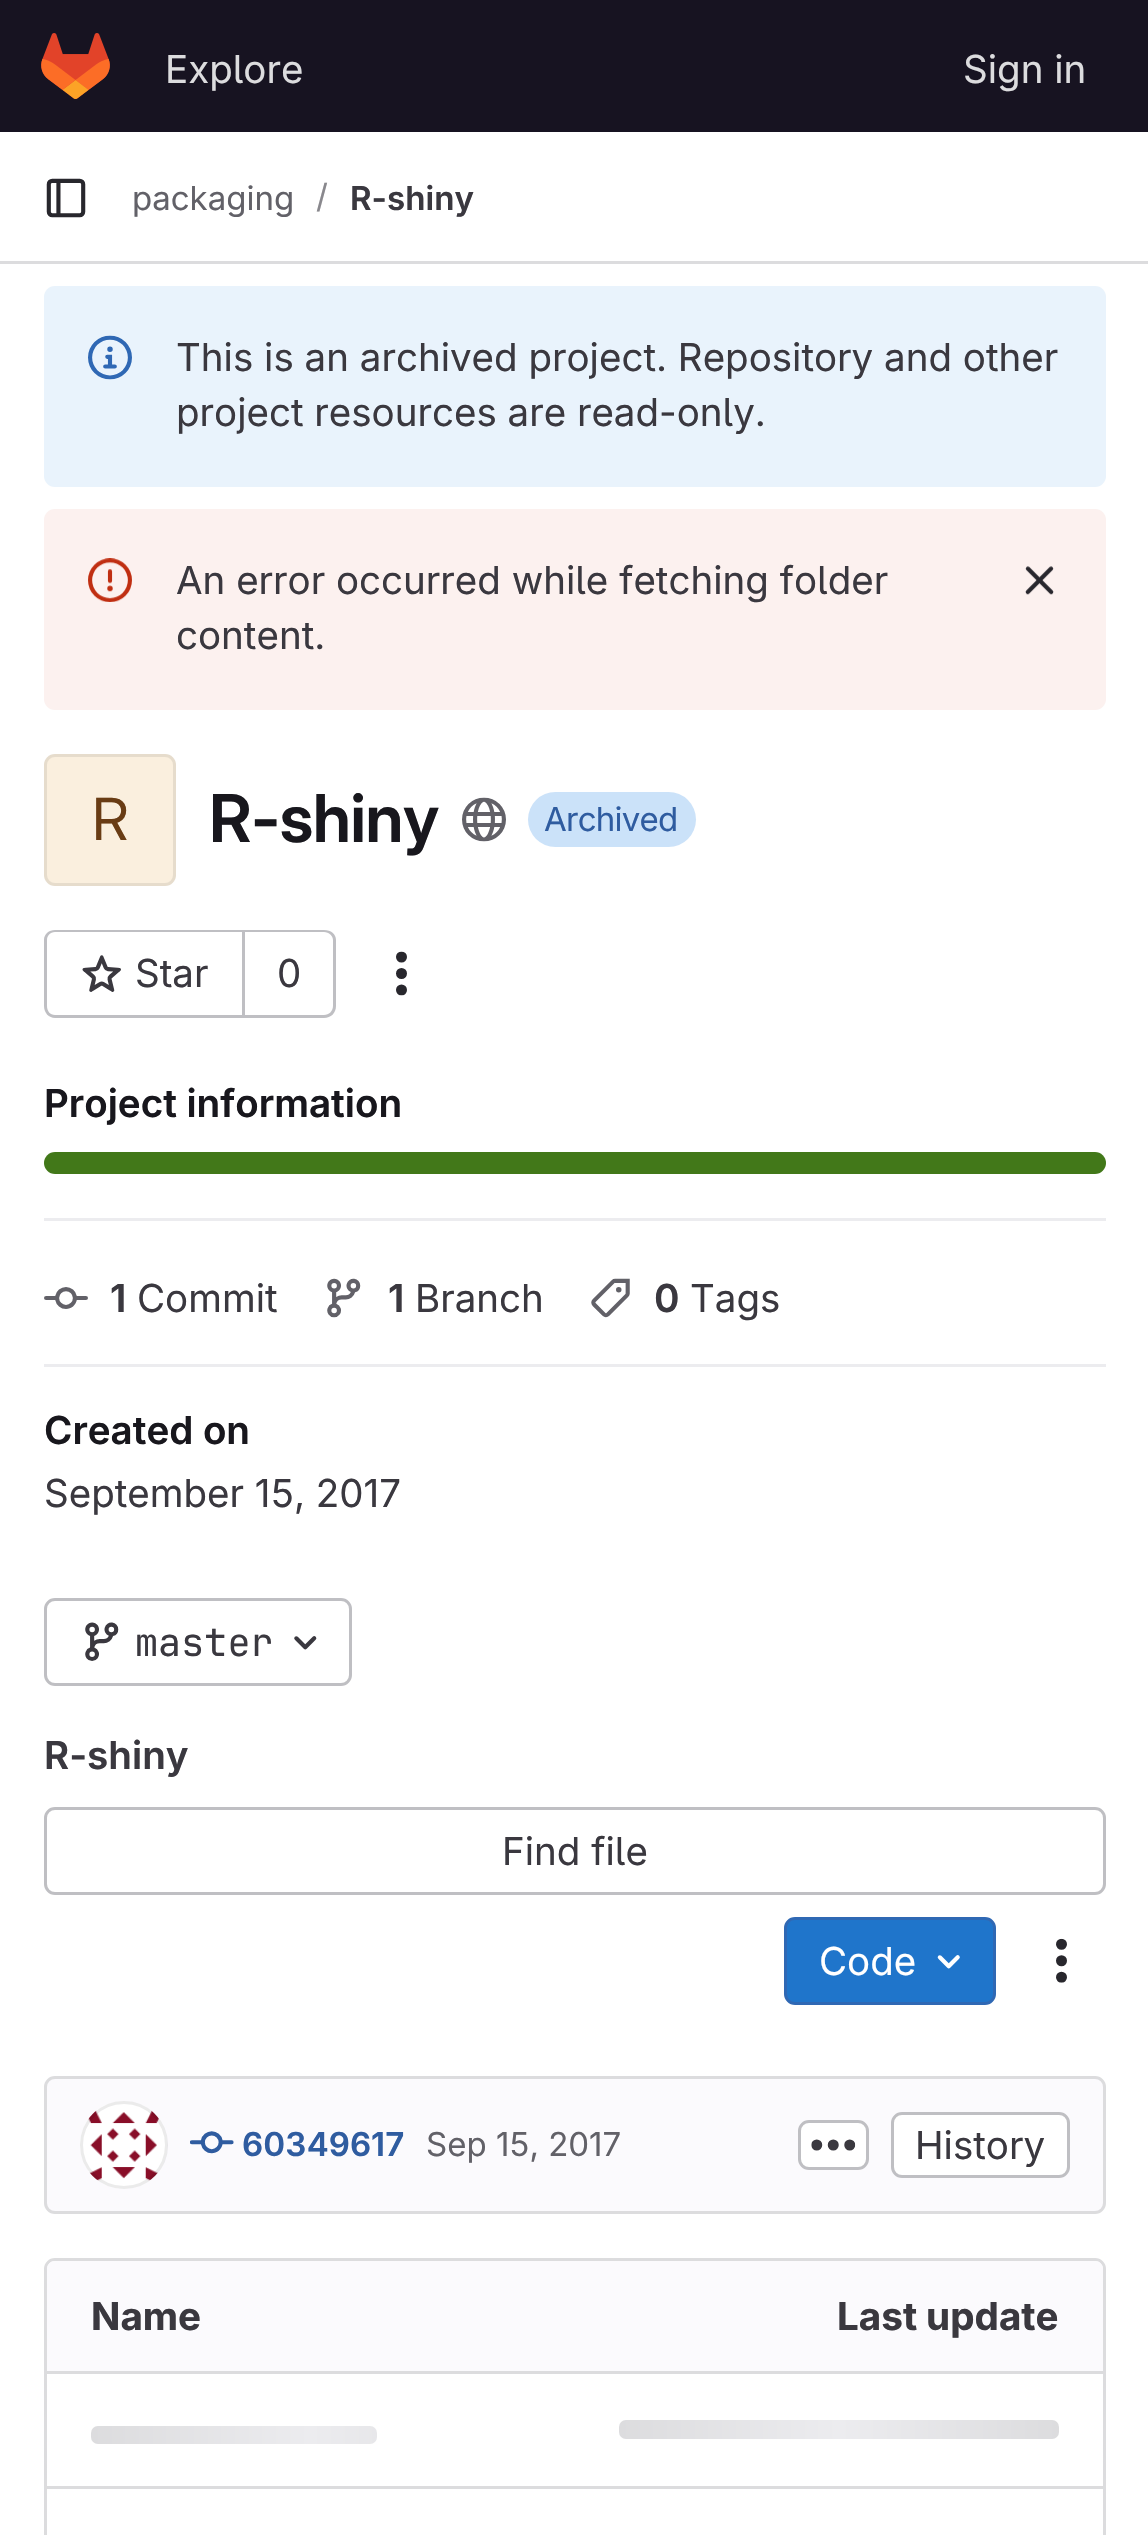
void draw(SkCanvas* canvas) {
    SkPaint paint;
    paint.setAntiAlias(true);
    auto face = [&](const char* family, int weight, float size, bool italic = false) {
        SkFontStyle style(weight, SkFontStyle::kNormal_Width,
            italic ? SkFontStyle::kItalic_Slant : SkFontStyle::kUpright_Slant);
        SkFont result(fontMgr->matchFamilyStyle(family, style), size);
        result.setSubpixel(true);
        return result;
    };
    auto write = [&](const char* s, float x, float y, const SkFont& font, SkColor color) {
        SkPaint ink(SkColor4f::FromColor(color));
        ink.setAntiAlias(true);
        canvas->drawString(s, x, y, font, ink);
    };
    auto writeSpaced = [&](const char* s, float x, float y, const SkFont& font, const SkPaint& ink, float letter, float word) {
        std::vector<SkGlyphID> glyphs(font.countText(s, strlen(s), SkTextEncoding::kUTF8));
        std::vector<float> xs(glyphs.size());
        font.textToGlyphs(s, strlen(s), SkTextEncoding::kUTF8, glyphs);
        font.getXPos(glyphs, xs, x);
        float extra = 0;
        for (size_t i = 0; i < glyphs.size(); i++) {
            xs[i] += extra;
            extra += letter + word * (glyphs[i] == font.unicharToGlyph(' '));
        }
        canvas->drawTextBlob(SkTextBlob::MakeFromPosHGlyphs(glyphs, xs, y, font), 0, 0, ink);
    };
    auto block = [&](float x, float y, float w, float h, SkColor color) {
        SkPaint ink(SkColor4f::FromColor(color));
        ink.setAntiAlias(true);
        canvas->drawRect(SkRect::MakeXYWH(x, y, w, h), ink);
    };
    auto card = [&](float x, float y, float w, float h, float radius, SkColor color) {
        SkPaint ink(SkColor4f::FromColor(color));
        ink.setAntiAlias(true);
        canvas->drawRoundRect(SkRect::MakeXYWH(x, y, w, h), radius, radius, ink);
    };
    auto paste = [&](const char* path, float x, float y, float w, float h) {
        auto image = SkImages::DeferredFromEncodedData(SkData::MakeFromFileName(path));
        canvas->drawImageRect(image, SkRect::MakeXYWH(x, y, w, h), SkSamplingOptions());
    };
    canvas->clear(SK_ColorWHITE);
    block(0, 0, 1148, 132, SkColorSetRGB(23, 19, 33));
    paste("pic1.png", 41, 33, 69, 66);
    auto kFont1 = face("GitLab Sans", 400, 38.5f);
    write("Explore", 165, 83, kFont1, SkColorSetRGB(220, 220, 222));
    write("Sign in", 963, 83, kFont1, SkColorSetRGB(220, 220, 222));
    block(0, 261, 1148, 3, SkColorSetRGB(220, 220, 222));
    paste("pic2.png", 46, 178, 40, 40);
    auto kFont2 = face("GitLab Sans", 400, 33);
    write("packaging", 132, 210, kFont2, SkColorSetRGB(98, 97, 104));
    write("/", 316, 208, kFont2, SkColorSetRGB(137, 136, 141));
    auto kFont3 = face("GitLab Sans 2", 600, 33);
    write("R-shiny", 350, 210, kFont3, SkColorSetRGB(58, 56, 63));
    card(44, 286, 1062, 201, 11, SkColorSetRGB(233, 243, 252));
    paste("pic3.png", 88, 335, 44, 45);
    write("This is an archived project. Repository and other", 176, 371, kFont1, SkColorSetRGB(58, 56, 63));
    write("project resources are read-only.", 176, 426, kFont1, SkColorSetRGB(58, 56, 63));
    card(44, 509, 1062, 201, 11, SkColorSetRGB(252, 241, 239));
    paste("pic4.png", 88, 558, 44, 44);
    write("An error occurred while fetching folder", 176, 594, kFont1, SkColorSetRGB(58, 56, 63));
    write("content.", 176, 649, kFont1, SkColorSetRGB(58, 56, 63));
    paste("pic5.png", 1025, 566, 29, 29);
    card(44, 754, 132, 132, 11, SkColorSetRGB(250, 239, 222));
    paint.setStyle(SkPaint::kStroke_Style);
    paint.setStrokeWidth(3);
    paint.setColor(SkColorSetARGB(20, 5, 5, 6));
    canvas->drawRoundRect(SkRect::MakeXYWH(45.5f, 755.5f, 129, 129), 9.5f, 9.5f, paint);
    auto kFont4 = face("GitLab Sans 2", 400, 58);
    write("R", 92, 840, kFont4, SkColorSetRGB(105, 60, 20));
    auto kFont5 = face("GitLab Sans", 600, 66);
    paint.setStyle(SkPaint::kFill_Style);
    paint.setColor(SkColorSetRGB(24, 23, 29));
    writeSpaced("R-shiny", 209, 842, kFont5, paint, -0.75f, 0);
    paste("pic6.png", 462, 797, 44, 45);
    card(528, 792, 168, 55, 27.5f, SkColorSetRGB(203, 226, 249));
    paint.setColor(SkColorSetRGB(47, 92, 160));
    writeSpaced("Archived", 544, 831, kFont2, paint, -0.75f, 0);
    paint.setColor(SkColorSetRGB(191, 191, 195));
    canvas->drawPath(SkPathBuilder(SkPathFillType::kEvenOdd).moveTo(55, 930).lineTo(242, 930).lineTo(242, 1018).lineTo(55, 1018).cubicTo(49, 1018, 44, 1013, 44, 1006).lineTo(44, 940).cubicTo(44, 934, 49, 930, 55, 930).close().moveTo(55, 932).lineTo(242, 932).lineTo(242, 1015).lineTo(55, 1015).cubicTo(50, 1015, 47, 1011, 47, 1006).lineTo(47, 940).cubicTo(47, 936, 50, 932, 55, 932).close().detach(), paint);
    paste("pic7.png", 82, 955, 39, 37);
    write("Star", 135, 987, kFont1, SkColorSetRGB(58, 56, 63));
    canvas->drawPath(SkPathBuilder(SkPathFillType::kEvenOdd).moveTo(245, 930).lineTo(324, 930).cubicTo(331, 930, 336, 934, 336, 940).lineTo(336, 1006).cubicTo(336, 1013, 331, 1018, 324, 1018).lineTo(245, 1018).close().moveTo(245, 932).lineTo(324, 932).cubicTo(329, 932, 333, 936, 333, 940).lineTo(333, 1006).cubicTo(333, 1011, 329, 1015, 324, 1015).lineTo(245, 1015).close().detach(), paint);
    block(242, 930, 3, 88, SkColorSetRGB(191, 191, 195));
    write("0", 277, 987, kFont1, SkColorSetRGB(58, 56, 63));
    paste("pic8.png", 396, 951, 11, 45);
    block(44, 1218, 1062, 3, SkColorSetRGB(236, 236, 239));
    auto kFont6 = face("GitLab Sans 2", 600, 38.5f);
    write("Project information", 44, 1117, kFont6, SkColorSetRGB(24, 23, 29));
    card(44, 1152, 1062, 22, 11, SkColorSetRGB(66, 120, 25));
    block(44, 1364, 1062, 3, SkColorSetRGB(236, 236, 239));
    paste("pic9.png", 44, 1287, 44, 22);
    write("1", 110, 1312, kFont6, SkColorSetRGB(58, 56, 63));
    write("Commit", 137, 1312, kFont1, SkColorSetRGB(58, 56, 63));
    paste("pic10.png", 327, 1278, 34, 40);
    write("1", 388, 1312, kFont6, SkColorSetRGB(58, 56, 63));
    write("Branch", 415, 1312, kFont1, SkColorSetRGB(58, 56, 63));
    paste("pic11.png", 591, 1278, 39, 40);
    write("0", 654, 1312, kFont6, SkColorSetRGB(58, 56, 63));
    write("Tags", 690, 1312, kFont1, SkColorSetRGB(58, 56, 63));
    write("Created on", 44, 1444, kFont6, SkColorSetRGB(24, 23, 29));
    write("September 15, 2017", 44, 1507, kFont1, SkColorSetRGB(58, 56, 63));
    paint.setStyle(SkPaint::kStroke_Style);
    canvas->drawRoundRect(SkRect::MakeXYWH(45.5f, 1599.5f, 305, 85), 9.5f, 9.5f, paint);
    paste("pic12.png", 85, 1622, 34, 39);
    auto kFont7 = face("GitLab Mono", 400, 38.5f);
    write("master", 135, 1656, kFont7, SkColorSetRGB(58, 56, 63));
    paste("pic13.png", 294, 1636, 23, 14);
    write("R-shiny", 44, 1769, kFont6, SkColorSetRGB(58, 56, 63));
    canvas->drawRoundRect(SkRect::MakeXYWH(45.5f, 1808.5f, 1059, 85), 9.5f, 9.5f, paint);
    write("Find file", 502, 1865, kFont1, SkColorSetRGB(58, 56, 63));
    paint.setStyle(SkPaint::kFill_Style);
    paint.setColor(SkColorSetRGB(31, 117, 203));
    canvas->drawRoundRect(SkRect::MakeXYWH(785.5f, 1918.5f, 209, 85), 9.5f, 9.5f, paint);
    paint.setStyle(SkPaint::kStroke_Style);
    paint.setColor(SkColorSetRGB(47, 104, 180));
    canvas->drawRoundRect(SkRect::MakeXYWH(785.5f, 1918.5f, 209, 85), 9.5f, 9.5f, paint);
    write("Code", 819, 1975, kFont1, SK_ColorWHITE);
    paste("pic14.png", 937, 1955, 23, 14);
    paste("pic15.png", 1056, 1938, 11, 45);
    paint.setStyle(SkPaint::kFill_Style);
    paint.setColor(SkColorSetRGB(251, 250, 253));
    canvas->drawRoundRect(SkRect::MakeXYWH(45.5f, 2077.5f, 1059, 135), 9.5f, 9.5f, paint);
    paint.setStyle(SkPaint::kStroke_Style);
    paint.setColor(SkColorSetRGB(220, 220, 222));
    canvas->drawRoundRect(SkRect::MakeXYWH(45.5f, 2077.5f, 1059, 135), 9.5f, 9.5f, paint);
    paste("pic16.png", 80, 2101, 87, 88);
    paint.setColor(SkColorSetARGB(20, 5, 5, 6));
    canvas->drawCircle(124, 2145, 42.5f, paint);
    paste("pic17.png", 190, 2131, 44, 23);
    write("60349617", 242, 2156, kFont3, SkColorSetRGB(47, 92, 160));
    write("Sep 15, 2017", 426, 2156, kFont2, SkColorSetRGB(98, 97, 104));
    paint.setStyle(SkPaint::kFill_Style);
    paint.setColor(SK_ColorWHITE);
    canvas->drawRoundRect(SkRect::MakeXYWH(799.5f, 2121.5f, 68, 47), 9.5f, 9.5f, paint);
    paint.setStyle(SkPaint::kStroke_Style);
    paint.setColor(SkColorSetRGB(191, 191, 195));
    canvas->drawRoundRect(SkRect::MakeXYWH(799.5f, 2121.5f, 68, 47), 9.5f, 9.5f, paint);
    paste("pic18.png", 811, 2139, 45, 12);
    paint.setStyle(SkPaint::kFill_Style);
    paint.setColor(SK_ColorWHITE);
    canvas->drawRoundRect(SkRect::MakeXYWH(892.5f, 2113.5f, 176, 63), 9.5f, 9.5f, paint);
    paint.setStyle(SkPaint::kStroke_Style);
    paint.setColor(SkColorSetRGB(191, 191, 195));
    canvas->drawRoundRect(SkRect::MakeXYWH(892.5f, 2113.5f, 176, 63), 9.5f, 9.5f, paint);
    write("History", 915, 2159, kFont1, SkColorSetRGB(58, 56, 63));
    paint.setColor(SkColorSetRGB(220, 220, 222));
    canvas->drawRoundRect(SkRect::MakeXYWH(45.5f, 2259.5f, 1059, 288), 9.5f, 9.5f, paint);
    paint.setStyle(SkPaint::kFill_Style);
    paint.setColor(SkColorSetRGB(251, 250, 253));
    canvas->drawPath(SkPathBuilder().moveTo(55, 2261).lineTo(575, 2261).lineTo(575, 2373).lineTo(47, 2373).lineTo(47, 2269).cubicTo(47, 2264.5f, 50.5f, 2261, 55, 2261).close().detach(), paint);
    auto kFont8 = face("GitLab Sans", 700, 38.5f);
    write("Name", 91, 2330, kFont8, SkColorSetRGB(58, 56, 63));
    canvas->drawPath(SkPathBuilder().moveTo(575, 2261).lineTo(1095, 2261).cubicTo(1099.5f, 2261, 1103, 2264.5f, 1103, 2269).lineTo(1103, 2373).lineTo(575, 2373).close().detach(), paint);
    write("Last update", 837, 2330, kFont8, SkColorSetRGB(58, 56, 63));
    block(47, 2486, 1056, 3, SkColorSetRGB(220, 220, 222));
    block(47, 2371, 1056, 3, SkColorSetRGB(220, 220, 222));
    {
        const SkColor colors[] = {SkColorSetRGB(220, 220, 222), SkColorSetRGB(236, 236, 239), SkColorSetRGB(220, 220, 222)};
        const float stops[] = {0, 0.5f, 1};
        const SkPoint ends[] = {{619, 2420}, {1059, 2420}};
        paint.setShader(SkGradientShader::MakeLinear(ends, colors, stops, 3, SkTileMode::kClamp));
        paint.setAlpha(255);
    }
    canvas->drawRoundRect(SkRect::MakeXYWH(619, 2420, 440, 19), 7, 7, paint);
    {
        const SkColor colors[] = {SkColorSetRGB(220, 220, 222), SkColorSetRGB(236, 236, 239), SkColorSetRGB(220, 220, 222)};
        const float stops[] = {0, 0.5f, 1};
        const SkPoint ends[] = {{91, 2426}, {530, 2426}};
        paint.setShader(SkGradientShader::MakeLinear(ends, colors, stops, 3, SkTileMode::kClamp));
        paint.setAlpha(255);
    }
    canvas->drawRoundRect(SkRect::MakeXYWH(91, 2426, 286, 18), 7, 7, paint);
}
